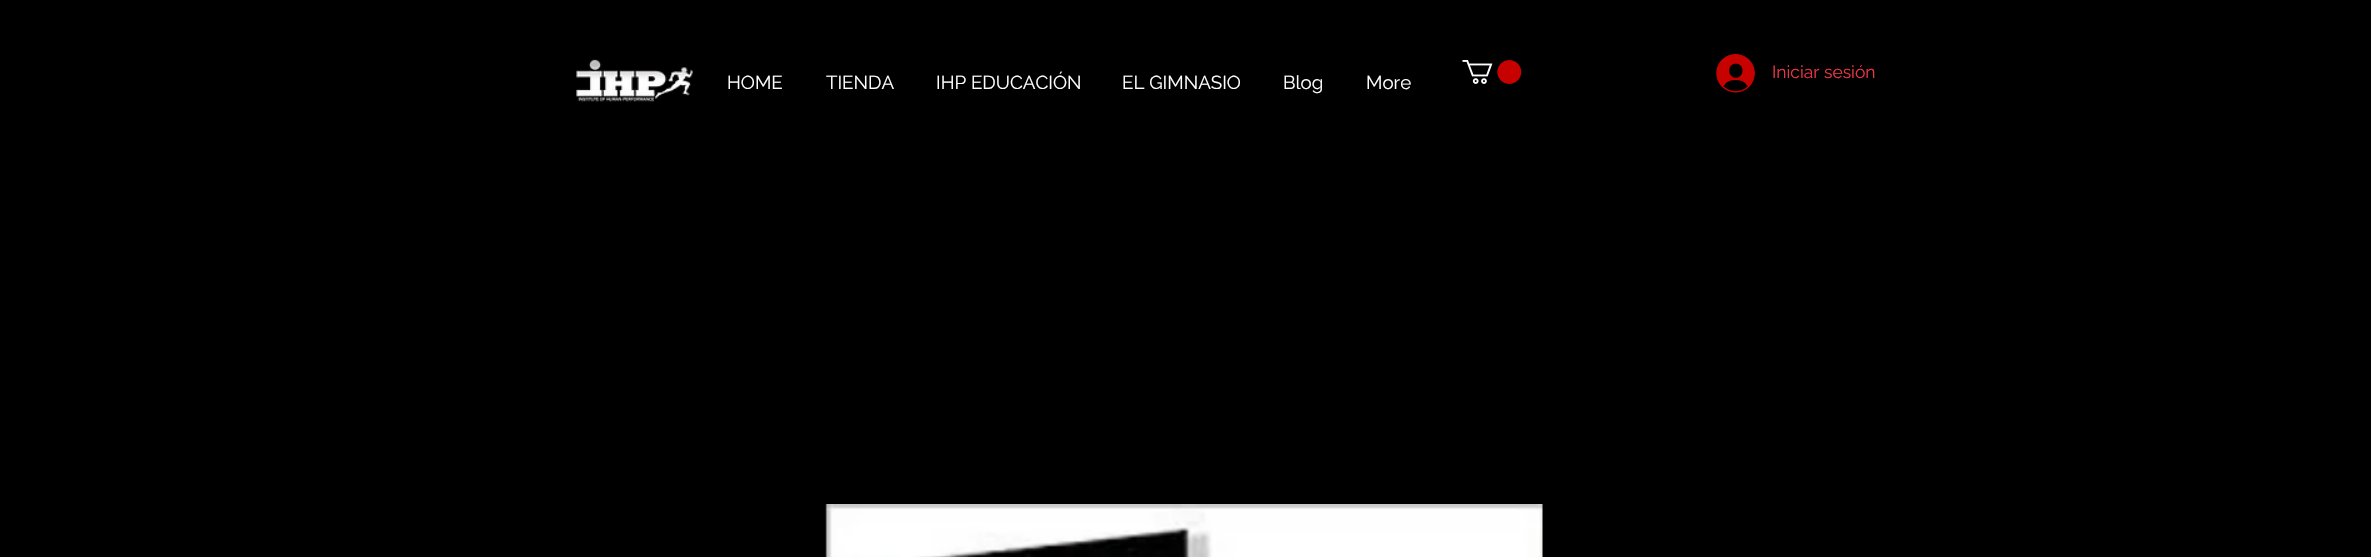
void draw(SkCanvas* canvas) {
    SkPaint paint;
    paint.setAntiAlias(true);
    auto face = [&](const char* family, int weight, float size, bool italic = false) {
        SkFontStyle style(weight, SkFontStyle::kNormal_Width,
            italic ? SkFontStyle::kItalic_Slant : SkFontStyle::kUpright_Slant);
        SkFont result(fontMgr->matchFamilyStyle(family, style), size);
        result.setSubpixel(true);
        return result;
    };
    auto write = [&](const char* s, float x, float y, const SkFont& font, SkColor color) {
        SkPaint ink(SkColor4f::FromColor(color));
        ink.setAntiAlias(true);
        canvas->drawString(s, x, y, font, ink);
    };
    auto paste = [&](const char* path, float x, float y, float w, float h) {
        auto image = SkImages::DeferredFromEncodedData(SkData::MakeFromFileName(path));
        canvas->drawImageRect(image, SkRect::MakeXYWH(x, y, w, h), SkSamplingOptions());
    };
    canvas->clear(SK_ColorBLACK);
    paste("pic1.png", 576, 59, 117, 43);
    auto kFont1 = face("Raleway", 400, 18.75f);
    write("HOME", 727, 89, kFont1, SK_ColorWHITE);
    write("TIENDA", 826, 89, kFont1, SK_ColorWHITE);
    write("IHP EDUCACIÓN", 936, 89, kFont1, SK_ColorWHITE);
    write("EL GIMNASIO", 1122, 89, kFont1, SK_ColorWHITE);
    write("Blog", 1283, 89, kFont1, SK_ColorWHITE);
    write("More", 1366, 89, kFont1, SK_ColorWHITE);
    paste("pic2.png", 1462, 60, 60, 24);
    paste("pic3.png", 1716, 54, 39, 39);
    auto kFont2 = face("Raleway", 400, 17.5f);
    write("Iniciar sesión", 1772, 78, kFont2, SkColorSetRGB(236, 54, 66));
    paste("pic4.png", 825, 504, 718, 53);
}
